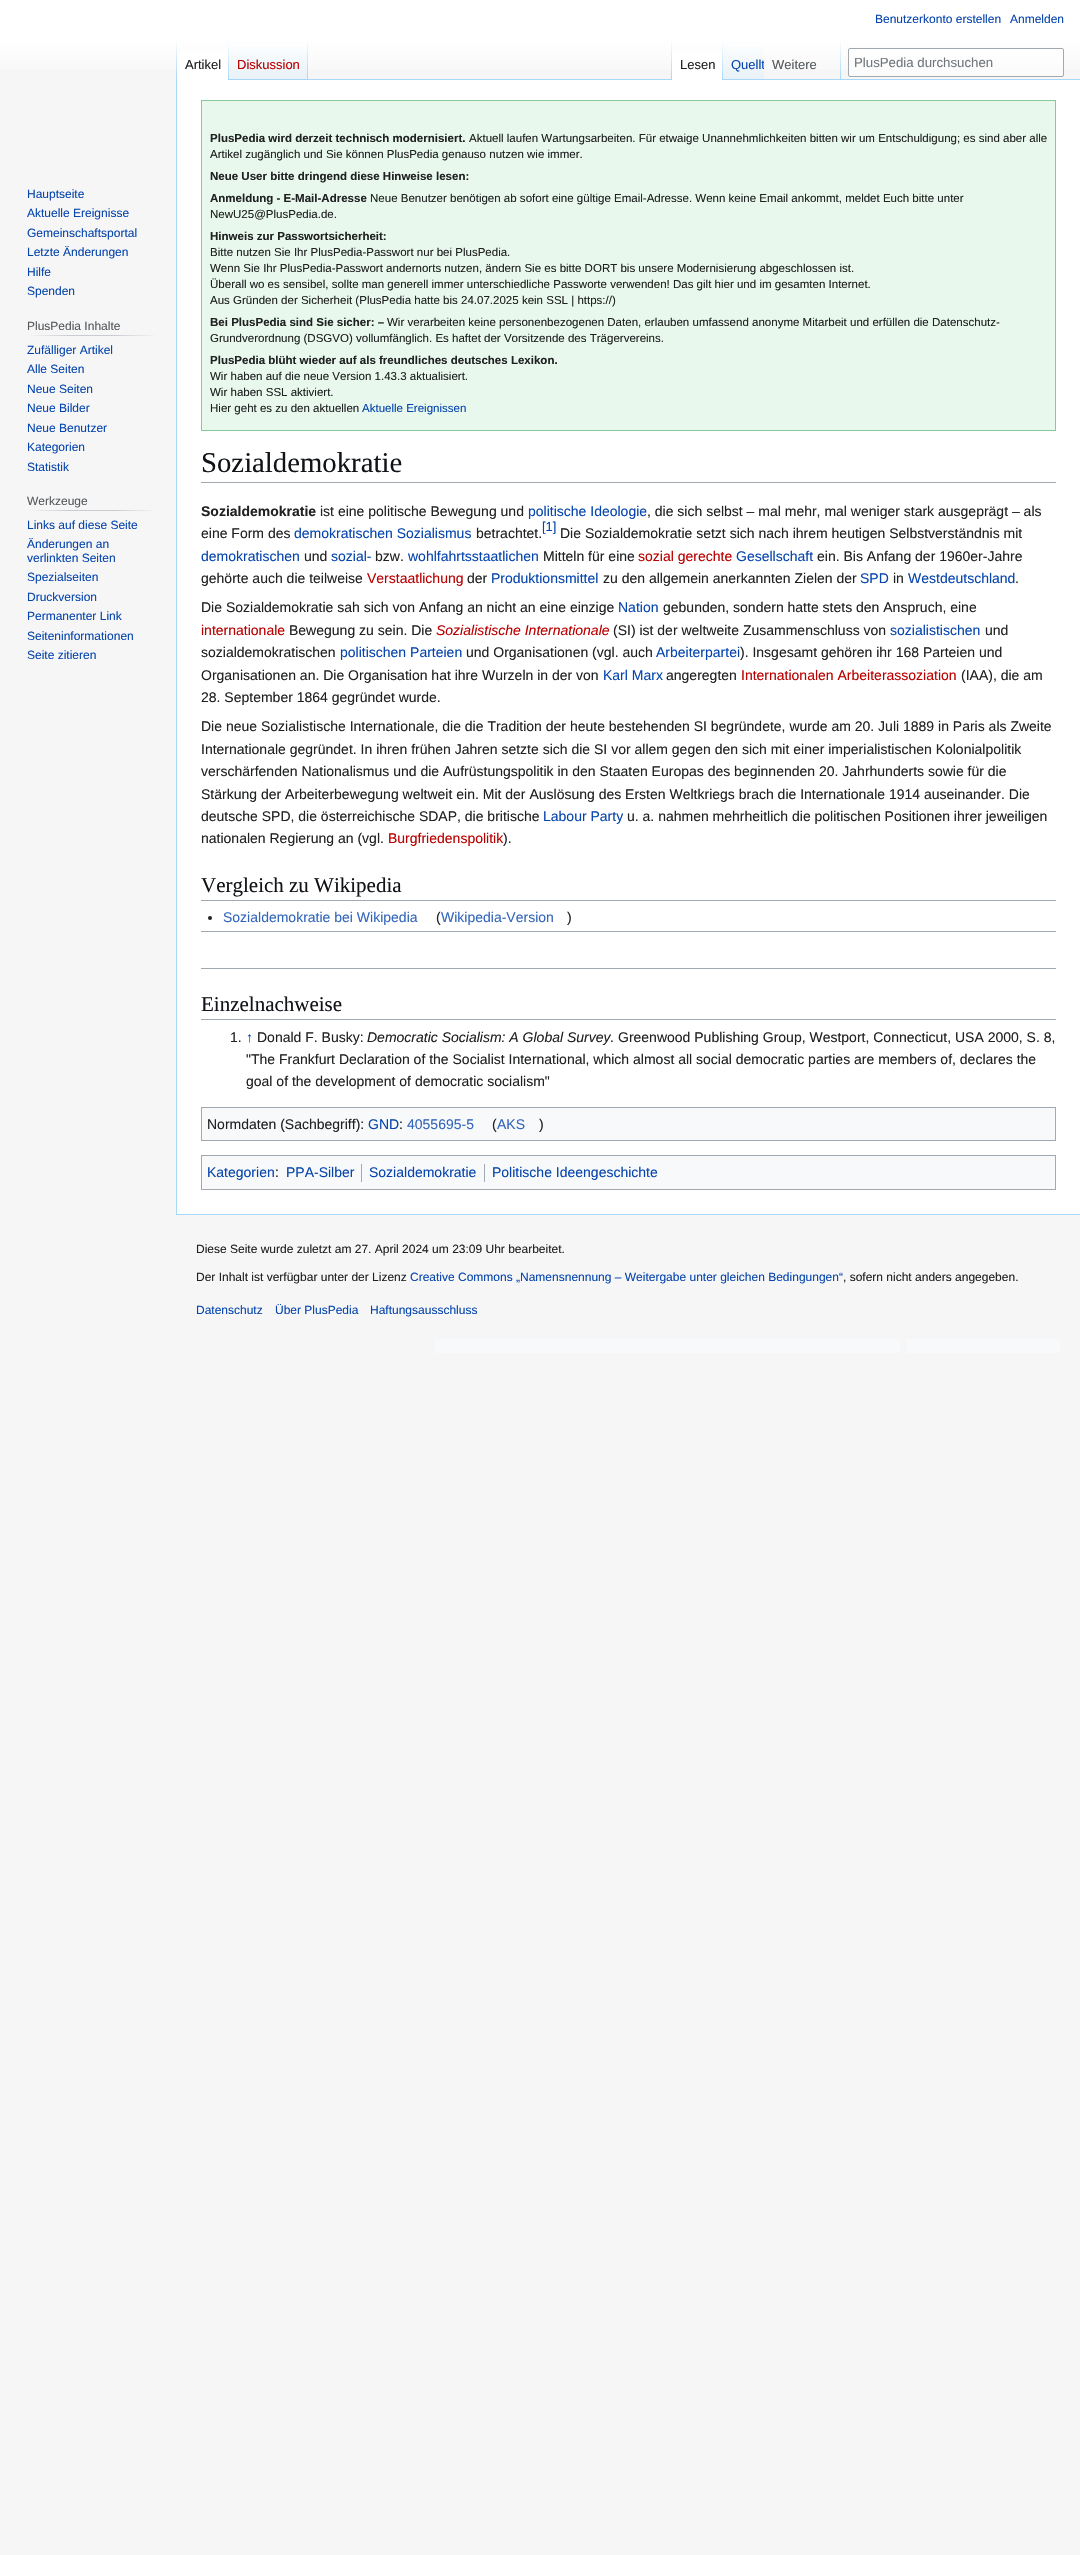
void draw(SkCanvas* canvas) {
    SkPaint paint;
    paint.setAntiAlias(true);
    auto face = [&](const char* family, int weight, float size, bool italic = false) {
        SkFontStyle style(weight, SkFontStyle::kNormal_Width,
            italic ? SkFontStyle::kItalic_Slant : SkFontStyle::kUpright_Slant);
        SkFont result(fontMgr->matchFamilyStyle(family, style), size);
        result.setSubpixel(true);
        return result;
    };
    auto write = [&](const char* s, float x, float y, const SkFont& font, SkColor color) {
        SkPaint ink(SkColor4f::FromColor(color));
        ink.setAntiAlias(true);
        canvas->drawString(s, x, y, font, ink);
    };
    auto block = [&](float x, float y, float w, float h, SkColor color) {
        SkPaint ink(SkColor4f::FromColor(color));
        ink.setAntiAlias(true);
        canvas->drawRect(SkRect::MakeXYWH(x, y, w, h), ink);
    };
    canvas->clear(SkColorSetRGB(246, 246, 246));
    {
        const SkColor colors[] = {SK_ColorWHITE, SkColorSetRGB(246, 246, 246)};
        const float stops[] = {0.5f, 1};
        const SkPoint ends[] = {{540, 0}, {540, 80}};
        paint.setShader(SkGradientShader::MakeLinear(ends, colors, stops, 2, SkTileMode::kClamp));
        paint.setAlpha(255);
    }
    canvas->drawRect(SkRect::MakeXYWH(0, 0, 1080, 69), paint);
    auto kFont1 = face("Liberation Sans", 400, 12);
    write("Benutzerkonto erstellen", 875, 23, kFont1, SkColorSetRGB(6, 69, 173));
    write("Anmelden", 1010, 23, kFont1, SkColorSetRGB(6, 69, 173));
    block(176, 1214, 904, 1, SkColorSetRGB(167, 215, 249));
    block(176, 79, 1, 1136, SkColorSetRGB(167, 215, 249));
    {
        const SkColor colors[] = {SkColorSetARGB(0, 167, 215, 249), SkColorSetRGB(167, 215, 249)};
        const float stops[] = {0, 1};
        const SkPoint ends[] = {{177, 40}, {177, 80}};
        paint.setShader(SkGradientShader::MakeLinear(ends, colors, stops, 2, SkTileMode::kClamp));
        paint.setAlpha(255);
    }
    canvas->drawRect(SkRect::MakeXYWH(176, 40, 1, 40), paint);
    block(177, 51, 51, 29, SK_ColorWHITE);
    {
        const SkColor colors[] = {SK_ColorWHITE, SkColorSetRGB(167, 215, 249)};
        const float stops[] = {0, 1};
        const SkPoint ends[] = {{229, 40}, {229, 80}};
        paint.setShader(SkGradientShader::MakeLinear(ends, colors, stops, 2, SkTileMode::kClamp));
        paint.setAlpha(255);
    }
    canvas->drawRect(SkRect::MakeXYWH(228, 40, 1, 40), paint);
    auto kFont2 = face("Liberation Sans", 400, 13);
    write("Artikel", 185, 69, kFont2, SkColorSetRGB(32, 33, 34));
    {
        const SkColor colors[] = {SkColorSetRGB(119, 193, 246), SkColorSetRGB(232, 242, 248), SK_ColorWHITE};
        const float stops[] = {0, 0.03f, 1};
        const SkPoint ends[] = {{269, 80}, {269, 40}};
        paint.setShader(SkGradientShader::MakeLinear(ends, colors, stops, 3, SkTileMode::kClamp));
        paint.setAlpha(255);
    }
    canvas->drawRect(SkRect::MakeXYWH(229, 46, 79, 34), paint);
    {
        const SkColor colors[] = {SkColorSetARGB(0, 167, 215, 249), SkColorSetRGB(167, 215, 249)};
        const float stops[] = {0, 1};
        const SkPoint ends[] = {{308, 40}, {308, 80}};
        paint.setShader(SkGradientShader::MakeLinear(ends, colors, stops, 2, SkTileMode::kClamp));
        paint.setAlpha(255);
    }
    canvas->drawRect(SkRect::MakeXYWH(307, 40, 1, 40), paint);
    write("Diskussion", 237, 69, kFont2, SkColorSetRGB(186, 0, 0));
    block(308, 79, 772, 1, SkColorSetRGB(167, 215, 249));
    {
        const SkColor colors[] = {SkColorSetARGB(0, 167, 215, 249), SkColorSetRGB(167, 215, 249)};
        const float stops[] = {0, 1};
        const SkPoint ends[] = {{672, 40}, {672, 80}};
        paint.setShader(SkGradientShader::MakeLinear(ends, colors, stops, 2, SkTileMode::kClamp));
        paint.setAlpha(255);
    }
    canvas->drawRect(SkRect::MakeXYWH(671, 40, 1, 40), paint);
    block(672, 51, 50, 29, SK_ColorWHITE);
    {
        const SkColor colors[] = {SK_ColorWHITE, SkColorSetRGB(167, 215, 249)};
        const float stops[] = {0, 1};
        const SkPoint ends[] = {{723, 40}, {723, 80}};
        paint.setShader(SkGradientShader::MakeLinear(ends, colors, stops, 2, SkTileMode::kClamp));
        paint.setAlpha(255);
    }
    canvas->drawRect(SkRect::MakeXYWH(722, 40, 1, 40), paint);
    write("Lesen", 680, 69, kFont2, SkColorSetRGB(32, 33, 34));
    {
        const SkColor colors[] = {SkColorSetRGB(119, 193, 246), SkColorSetRGB(232, 242, 248), SK_ColorWHITE};
        const float stops[] = {0, 0.03f, 1};
        const SkPoint ends[] = {{744, 80}, {744, 40}};
        paint.setShader(SkGradientShader::MakeLinear(ends, colors, stops, 3, SkTileMode::kClamp));
        paint.setAlpha(255);
    }
    canvas->drawRect(SkRect::MakeXYWH(723, 46, 41, 33), paint);
    canvas->save();
    canvas->clipRect(SkRect::MakeXYWH(723, 40, 41, 40));
    write("Quellt", 731, 69, kFont2, SkColorSetRGB(6, 69, 173));
    canvas->restore();
    {
        const SkColor colors[] = {SkColorSetARGB(0, 167, 215, 249), SkColorSetRGB(167, 215, 249)};
        const float stops[] = {0, 1};
        const SkPoint ends[] = {{841, 40}, {841, 80}};
        paint.setShader(SkGradientShader::MakeLinear(ends, colors, stops, 2, SkTileMode::kClamp));
        paint.setAlpha(255);
    }
    canvas->drawRect(SkRect::MakeXYWH(840, 40, 1, 40), paint);
    write("Weitere", 772, 69, kFont2, SkColorSetRGB(84, 89, 93));
    paint.setShader(nullptr);
    paint.setColor(SkColorSetARGB(128, 255, 255, 255));
    canvas->drawRoundRect(SkRect::MakeXYWH(848.5f, 48.5f, 215, 28), 1.5f, 1.5f, paint);
    paint.setStyle(SkPaint::kStroke_Style);
    paint.setStrokeWidth(1);
    paint.setColor(SkColorSetRGB(162, 169, 177));
    canvas->drawRoundRect(SkRect::MakeXYWH(848.5f, 48.5f, 215, 28), 1.5f, 1.5f, paint);
    auto kFont3 = face("Liberation Sans", 400, 13.25f);
    write("PlusPedia durchsuchen", 854, 67, kFont3, SkColorSetRGB(114, 119, 125));
    write("Hauptseite", 27, 198, kFont1, SkColorSetRGB(6, 69, 173));
    write("Aktuelle Ereignisse", 27, 217, kFont1, SkColorSetRGB(6, 69, 173));
    write("Gemeinschaftsportal", 27, 237, kFont1, SkColorSetRGB(6, 69, 173));
    write("Letzte Änderungen", 27, 256, kFont1, SkColorSetRGB(6, 69, 173));
    write("Hilfe", 27, 276, kFont1, SkColorSetRGB(6, 69, 173));
    write("Spenden", 27, 295, kFont1, SkColorSetRGB(6, 69, 173));
    paint.setStyle(SkPaint::kFill_Style);
    {
        const SkColor colors[] = {SkColorSetRGB(246, 246, 246), SkColorSetRGB(200, 204, 209), SkColorSetRGB(200, 204, 209), SkColorSetRGB(246, 246, 246)};
        const float stops[] = {0, 0.33f, 0.66f, 1};
        const SkPoint ends[] = {{27, 336}, {158, 336}};
        paint.setShader(SkGradientShader::MakeLinear(ends, colors, stops, 4, SkTileMode::kClamp));
        paint.setAlpha(255);
    }
    canvas->drawRect(SkRect::MakeXYWH(27, 335, 131, 1), paint);
    write("PlusPedia Inhalte", 27, 330, kFont1, SkColorSetRGB(84, 89, 93));
    write("Zufälliger Artikel", 27, 354, kFont1, SkColorSetRGB(6, 69, 173));
    write("Alle Seiten", 27, 373, kFont1, SkColorSetRGB(6, 69, 173));
    write("Neue Seiten", 27, 393, kFont1, SkColorSetRGB(6, 69, 173));
    write("Neue Bilder", 27, 412, kFont1, SkColorSetRGB(6, 69, 173));
    write("Neue Benutzer", 27, 432, kFont1, SkColorSetRGB(6, 69, 173));
    write("Kategorien", 27, 451, kFont1, SkColorSetRGB(6, 69, 173));
    write("Statistik", 27, 471, kFont1, SkColorSetRGB(6, 69, 173));
    {
        const SkColor colors[] = {SkColorSetRGB(246, 246, 246), SkColorSetRGB(200, 204, 209), SkColorSetRGB(200, 204, 209), SkColorSetRGB(246, 246, 246)};
        const float stops[] = {0, 0.33f, 0.66f, 1};
        const SkPoint ends[] = {{27, 511}, {158, 511}};
        paint.setShader(SkGradientShader::MakeLinear(ends, colors, stops, 4, SkTileMode::kClamp));
        paint.setAlpha(255);
    }
    canvas->drawRect(SkRect::MakeXYWH(27, 510, 131, 1), paint);
    write("Werkzeuge", 27, 505, kFont1, SkColorSetRGB(84, 89, 93));
    write("Links auf diese Seite", 27, 529, kFont1, SkColorSetRGB(6, 69, 173));
    write("Änderungen an", 27, 548, kFont1, SkColorSetRGB(6, 69, 173));
    write("verlinkten Seiten", 27, 562, kFont1, SkColorSetRGB(6, 69, 173));
    write("Spezialseiten", 27, 581, kFont1, SkColorSetRGB(6, 69, 173));
    write("Druckversion", 27, 601, kFont1, SkColorSetRGB(6, 69, 173));
    write("Permanenter Link", 27, 620, kFont1, SkColorSetRGB(6, 69, 173));
    write("Seiteninformationen", 27, 640, kFont1, SkColorSetRGB(6, 69, 173));
    write("Seite zitieren", 27, 659, kFont1, SkColorSetRGB(6, 69, 173));
    block(177, 80, 903, 1134, SK_ColorWHITE);
    paint.setShader(nullptr);
    paint.setColor(SkColorSetRGB(232, 248, 236));
    canvas->drawRect(SkRect::MakeXYWH(201.5f, 100.5f, 854, 330), paint);
    paint.setStyle(SkPaint::kStroke_Style);
    paint.setColor(SkColorSetRGB(136, 201, 156));
    canvas->drawRect(SkRect::MakeXYWH(201.5f, 100.5f, 854, 330), paint);
    auto kFont4 = face("Liberation Sans", 700, 11.52f);
    write("PlusPedia wird derzeit technisch modernisiert.", 210, 142, kFont4, SkColorSetRGB(32, 33, 34));
    auto kFont5 = face("Liberation Sans", 400, 11.52f);
    write("Aktuell laufen Wartungsarbeiten. Für etwaige Unannehmlichkeiten bitten wir um Entschuldigung; es sind aber alle", 469, 142, kFont5, SkColorSetRGB(32, 33, 34));
    write("Artikel zugänglich und Sie können PlusPedia genauso nutzen wie immer.", 210, 158, kFont5, SkColorSetRGB(32, 33, 34));
    write("Neue User bitte dringend diese Hinweise lesen:", 210, 180, kFont4, SkColorSetRGB(32, 33, 34));
    write("Anmeldung - E-Mail-Adresse", 210, 202, kFont4, SkColorSetRGB(32, 33, 34));
    write("Neue Benutzer benötigen ab sofort eine gültige Email-Adresse. Wenn keine Email ankommt, meldet Euch bitte unter", 370, 202, kFont5, SkColorSetRGB(32, 33, 34));
    write("NewU25@PlusPedia.de.", 210, 218, kFont5, SkColorSetRGB(32, 33, 34));
    write("Hinweis zur Passwortsicherheit:", 210, 240, kFont4, SkColorSetRGB(32, 33, 34));
    write("Bitte nutzen Sie Ihr PlusPedia-Passwort nur bei PlusPedia.", 210, 256, kFont5, SkColorSetRGB(32, 33, 34));
    write("Wenn Sie Ihr PlusPedia-Passwort andernorts nutzen, ändern Sie es bitte DORT bis unsere Modernisierung abgeschlossen ist.", 210, 272, kFont5, SkColorSetRGB(32, 33, 34));
    write("Überall wo es sensibel, sollte man generell immer unterschiedliche Passworte verwenden! Das gilt hier und im gesamten Internet.", 210, 288, kFont5, SkColorSetRGB(32, 33, 34));
    write("Aus Gründen der Sicherheit (PlusPedia hatte bis 24.07.2025 kein SSL | https://)", 210, 304, kFont5, SkColorSetRGB(32, 33, 34));
    write("Bei PlusPedia sind Sie sicher: –", 210, 326, kFont4, SkColorSetRGB(32, 33, 34));
    write("Wir verarbeiten keine personenbezogenen Daten, erlauben umfassend anonyme Mitarbeit und erfüllen die Datenschutz-", 387, 326, kFont5, SkColorSetRGB(32, 33, 34));
    write("Grundverordnung (DSGVO) vollumfänglich. Es haftet der Vorsitzende des Trägervereins.", 210, 342, kFont5, SkColorSetRGB(32, 33, 34));
    write("PlusPedia blüht wieder auf als freundliches deutsches Lexikon.", 210, 364, kFont4, SkColorSetRGB(32, 33, 34));
    write("Wir haben auf die neue Version 1.43.3 aktualisiert.", 210, 380, kFont5, SkColorSetRGB(32, 33, 34));
    write("Wir haben SSL aktiviert.", 210, 396, kFont5, SkColorSetRGB(32, 33, 34));
    write("Hier geht es zu den aktuellen", 210, 412, kFont5, SkColorSetRGB(32, 33, 34));
    write("Aktuelle Ereignissen", 362, 412, kFont5, SkColorSetRGB(6, 69, 173));
    block(201, 482, 855, 1, SkColorSetRGB(162, 169, 177));
    auto kFont6 = face("Liberation Serif", 400, 28.75f);
    write("Sozialdemokratie", 201, 472, kFont6, SkColorSetRGB(16, 20, 24));
    auto kFont7 = face("Liberation Sans", 700, 14);
    write("Sozialdemokratie", 201, 516, kFont7, SkColorSetRGB(32, 33, 34));
    auto kFont8 = face("Liberation Sans", 400, 14);
    write("ist eine politische Bewegung und", 320, 516, kFont8, SkColorSetRGB(32, 33, 34));
    write("politische Ideologie", 528, 516, kFont8, SkColorSetRGB(6, 69, 173));
    write(", die sich selbst – mal mehr, mal weniger stark ausgeprägt – als", 647, 516, kFont8, SkColorSetRGB(32, 33, 34));
    write("eine Form des", 201, 538, kFont8, SkColorSetRGB(32, 33, 34));
    write("demokratischen Sozialismus", 294, 538, kFont8, SkColorSetRGB(6, 69, 173));
    write("betrachtet.", 476, 538, kFont8, SkColorSetRGB(32, 33, 34));
    write("[1]", 542, 531, kFont2, SkColorSetRGB(6, 69, 173));
    write("Die Sozialdemokratie setzt sich nach ihrem heutigen Selbstverständnis mit", 560, 538, kFont8, SkColorSetRGB(32, 33, 34));
    write("demokratischen", 201, 561, kFont8, SkColorSetRGB(6, 69, 173));
    write("und", 304, 561, kFont8, SkColorSetRGB(32, 33, 34));
    write("sozial-", 331, 561, kFont8, SkColorSetRGB(6, 69, 173));
    write("bzw.", 375, 561, kFont8, SkColorSetRGB(32, 33, 34));
    write("wohlfahrtsstaatlichen", 408, 561, kFont8, SkColorSetRGB(6, 69, 173));
    write("Mitteln für eine", 543, 561, kFont8, SkColorSetRGB(32, 33, 34));
    write("sozial gerechte", 638, 561, kFont8, SkColorSetRGB(186, 0, 0));
    write("Gesellschaft", 736, 561, kFont8, SkColorSetRGB(6, 69, 173));
    write("ein. Bis Anfang der 1960er-Jahre", 817, 561, kFont8, SkColorSetRGB(32, 33, 34));
    write("gehörte auch die teilweise", 201, 583, kFont8, SkColorSetRGB(32, 33, 34));
    write("Verstaatlichung", 367, 583, kFont8, SkColorSetRGB(186, 0, 0));
    write("der", 467, 583, kFont8, SkColorSetRGB(32, 33, 34));
    write("Produktionsmittel", 491, 583, kFont8, SkColorSetRGB(6, 69, 173));
    write("zu den allgemein anerkannten Zielen der", 603, 583, kFont8, SkColorSetRGB(32, 33, 34));
    write("SPD", 860, 583, kFont8, SkColorSetRGB(6, 69, 173));
    write("in", 893, 583, kFont8, SkColorSetRGB(32, 33, 34));
    write("Westdeutschland", 908, 583, kFont8, SkColorSetRGB(6, 69, 173));
    write(".", 1015, 583, kFont8, SkColorSetRGB(32, 33, 34));
    write("Die Sozialdemokratie sah sich von Anfang an nicht an eine einzige", 201, 612, kFont8, SkColorSetRGB(32, 33, 34));
    write("Nation", 618, 612, kFont8, SkColorSetRGB(6, 69, 173));
    write("gebunden, sondern hatte stets den Anspruch, eine", 663, 612, kFont8, SkColorSetRGB(32, 33, 34));
    write("internationale", 201, 635, kFont8, SkColorSetRGB(186, 0, 0));
    write("Bewegung zu sein. Die", 289, 635, kFont8, SkColorSetRGB(32, 33, 34));
    auto kFont9 = face("Liberation Sans", 400, 14, true);
    write("Sozialistische Internationale", 436, 635, kFont9, SkColorSetRGB(186, 0, 0));
    write("(SI) ist der weltweite Zusammenschluss von", 613, 635, kFont8, SkColorSetRGB(32, 33, 34));
    write("sozialistischen", 890, 635, kFont8, SkColorSetRGB(6, 69, 173));
    write("und", 985, 635, kFont8, SkColorSetRGB(32, 33, 34));
    write("sozialdemokratischen", 201, 657, kFont8, SkColorSetRGB(32, 33, 34));
    write("politischen Parteien", 340, 657, kFont8, SkColorSetRGB(6, 69, 173));
    write("und Organisationen (vgl. auch", 466, 657, kFont8, SkColorSetRGB(32, 33, 34));
    write("Arbeiterpartei", 656, 657, kFont8, SkColorSetRGB(6, 69, 173));
    write("). Insgesamt gehören ihr 168 Parteien und", 740, 657, kFont8, SkColorSetRGB(32, 33, 34));
    write("Organisationen an. Die Organisation hat ihre Wurzeln in der von", 201, 680, kFont8, SkColorSetRGB(32, 33, 34));
    write("Karl Marx", 603, 680, kFont8, SkColorSetRGB(6, 69, 173));
    write("angeregten", 666, 680, kFont8, SkColorSetRGB(32, 33, 34));
    write("Internationalen Arbeiterassoziation", 741, 680, kFont8, SkColorSetRGB(186, 0, 0));
    write("(IAA), die am", 961, 680, kFont8, SkColorSetRGB(32, 33, 34));
    write("28. September 1864 gegründet wurde.", 201, 702, kFont8, SkColorSetRGB(32, 33, 34));
    write("Die neue Sozialistische Internationale, die die Tradition der heute bestehenden SI begründete, wurde am 20. Juli 1889 in Paris als Zweite", 201, 731, kFont8, SkColorSetRGB(32, 33, 34));
    write("Internationale gegründet. In ihren frühen Jahren setzte sich die SI vor allem gegen den sich mit einer imperialistischen Kolonialpolitik", 201, 754, kFont8, SkColorSetRGB(32, 33, 34));
    write("verschärfenden Nationalismus und die Aufrüstungspolitik in den Staaten Europas des beginnenden 20. Jahrhunderts sowie für die", 201, 776, kFont8, SkColorSetRGB(32, 33, 34));
    write("Stärkung der Arbeiterbewegung weltweit ein. Mit der Auslösung des Ersten Weltkriegs brach die Internationale 1914 auseinander. Die", 201, 799, kFont8, SkColorSetRGB(32, 33, 34));
    write("deutsche SPD, die österreichische SDAP, die britische", 201, 821, kFont8, SkColorSetRGB(32, 33, 34));
    write("Labour Party", 543, 821, kFont8, SkColorSetRGB(6, 69, 173));
    write("u. a. nahmen mehrheitlich die politischen Positionen ihrer jeweiligen", 627, 821, kFont8, SkColorSetRGB(32, 33, 34));
    write("nationalen Regierung an (vgl.", 201, 843, kFont8, SkColorSetRGB(32, 33, 34));
    write("Burgfriedenspolitik", 388, 843, kFont8, SkColorSetRGB(186, 0, 0));
    write(").", 503, 843, kFont8, SkColorSetRGB(32, 33, 34));
    block(201, 900, 855, 1, SkColorSetRGB(162, 169, 177));
    auto kFont10 = face("Liberation Serif", 400, 21);
    write("Vergleich zu Wikipedia", 201, 892, kFont10, SkColorSetRGB(16, 20, 24));
    paint.setStyle(SkPaint::kFill_Style);
    paint.setColor(SkColorSetRGB(32, 33, 34));
    canvas->drawCircle(210, 918, 2, paint);
    write("Sozialdemokratie bei Wikipedia", 223, 922, kFont8, SkColorSetRGB(51, 102, 187));
    write("(", 436, 922, kFont8, SkColorSetRGB(32, 33, 34));
    write("Wikipedia-Version", 441, 922, kFont8, SkColorSetRGB(51, 102, 187));
    write(")", 567, 922, kFont8, SkColorSetRGB(32, 33, 34));
    block(201, 931, 855, 1, SkColorSetRGB(162, 169, 177));
    block(201, 968, 855, 1, SkColorSetRGB(162, 169, 177));
    block(201, 1019, 855, 1, SkColorSetRGB(162, 169, 177));
    write("Einzelnachweise", 201, 1011, kFont10, SkColorSetRGB(16, 20, 24));
    write("1.", 230, 1042, kFont8, SkColorSetRGB(32, 33, 34));
    write("↑", 246, 1042, kFont9, SkColorSetRGB(6, 69, 173));
    write("Donald F. Busky:", 257, 1042, kFont8, SkColorSetRGB(32, 33, 34));
    write("Democratic Socialism: A Global Survey.", 367, 1042, kFont9, SkColorSetRGB(32, 33, 34));
    write("Greenwood Publishing Group, Westport, Connecticut, USA 2000, S. 8,", 618, 1042, kFont8, SkColorSetRGB(32, 33, 34));
    write("\"The Frankfurt Declaration of the Socialist International, which almost all social democratic parties are members of, declares the", 246, 1064, kFont8, SkColorSetRGB(32, 33, 34));
    write("goal of the development of democratic socialism\"", 246, 1086, kFont8, SkColorSetRGB(32, 33, 34));
    paint.setColor(SkColorSetRGB(248, 249, 250));
    canvas->drawRect(SkRect::MakeXYWH(201.5f, 1107.5f, 854, 33), paint);
    paint.setStyle(SkPaint::kStroke_Style);
    paint.setColor(SkColorSetRGB(162, 169, 177));
    canvas->drawRect(SkRect::MakeXYWH(201.5f, 1107.5f, 854, 33), paint);
    write("Normdaten (Sachbegriff):", 207, 1129, kFont8, SkColorSetRGB(32, 33, 34));
    write("GND", 368, 1129, kFont8, SkColorSetRGB(6, 69, 173));
    write(":", 399, 1129, kFont8, SkColorSetRGB(32, 33, 34));
    write("4055695-5", 407, 1129, kFont8, SkColorSetRGB(51, 102, 187));
    write("(", 492, 1129, kFont8, SkColorSetRGB(32, 33, 34));
    write("AKS", 497, 1129, kFont8, SkColorSetRGB(51, 102, 187));
    write(")", 539, 1129, kFont8, SkColorSetRGB(32, 33, 34));
    paint.setStyle(SkPaint::kFill_Style);
    paint.setColor(SkColorSetRGB(248, 249, 250));
    canvas->drawRect(SkRect::MakeXYWH(201.5f, 1155.5f, 854, 34), paint);
    paint.setStyle(SkPaint::kStroke_Style);
    paint.setColor(SkColorSetRGB(162, 169, 177));
    canvas->drawRect(SkRect::MakeXYWH(201.5f, 1155.5f, 854, 34), paint);
    write("Kategorien", 207, 1177, kFont8, SkColorSetRGB(6, 69, 173));
    write(":", 275, 1177, kFont8, SkColorSetRGB(32, 33, 34));
    write("PPA-Silber", 286, 1177, kFont8, SkColorSetRGB(6, 69, 173));
    block(361, 1164, 1, 18, SkColorSetRGB(162, 169, 177));
    write("Sozialdemokratie", 369, 1177, kFont8, SkColorSetRGB(6, 69, 173));
    block(484, 1164, 1, 18, SkColorSetRGB(162, 169, 177));
    write("Politische Ideengeschichte", 492, 1177, kFont8, SkColorSetRGB(6, 69, 173));
    write("Diese Seite wurde zuletzt am 27. April 2024 um 23:09 Uhr bearbeitet.", 196, 1253, kFont1, SkColorSetRGB(32, 33, 34));
    write("Der Inhalt ist verfügbar unter der Lizenz", 196, 1281, kFont1, SkColorSetRGB(32, 33, 34));
    write("Creative Commons „Namensnennung – Weitergabe unter gleichen Bedingungen“", 410, 1281, kFont1, SkColorSetRGB(6, 69, 173));
    write(", sofern nicht anders angegeben.", 843, 1281, kFont1, SkColorSetRGB(32, 33, 34));
    write("Datenschutz", 196, 1314, kFont1, SkColorSetRGB(6, 69, 173));
    write("Über PlusPedia", 275, 1314, kFont1, SkColorSetRGB(6, 69, 173));
    write("Haftungsausschluss", 370, 1314, kFont1, SkColorSetRGB(6, 69, 173));
    block(435, 1339, 465, 14, SkColorSetRGB(248, 249, 250));
    block(906, 1339, 154, 14, SkColorSetRGB(248, 249, 250));
}
